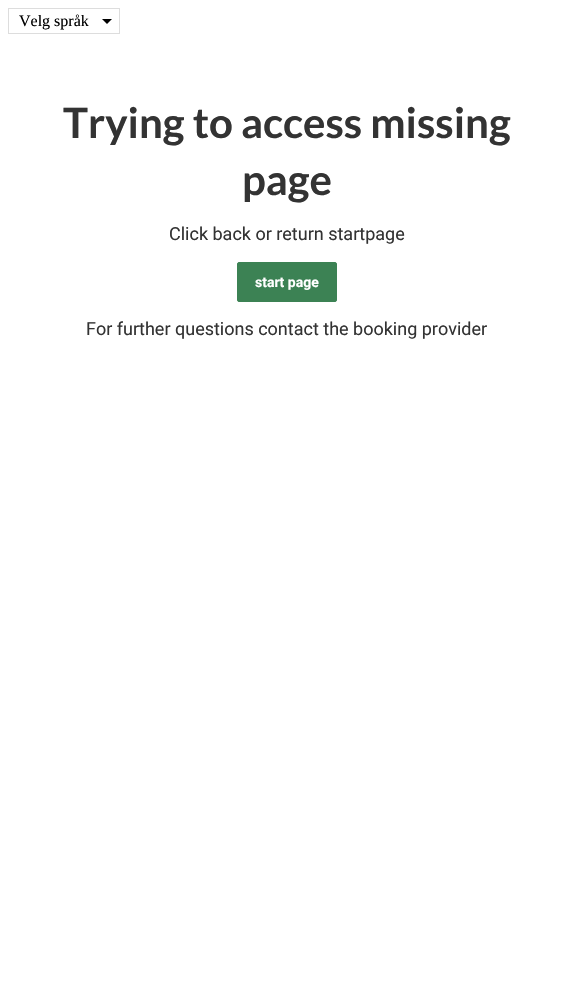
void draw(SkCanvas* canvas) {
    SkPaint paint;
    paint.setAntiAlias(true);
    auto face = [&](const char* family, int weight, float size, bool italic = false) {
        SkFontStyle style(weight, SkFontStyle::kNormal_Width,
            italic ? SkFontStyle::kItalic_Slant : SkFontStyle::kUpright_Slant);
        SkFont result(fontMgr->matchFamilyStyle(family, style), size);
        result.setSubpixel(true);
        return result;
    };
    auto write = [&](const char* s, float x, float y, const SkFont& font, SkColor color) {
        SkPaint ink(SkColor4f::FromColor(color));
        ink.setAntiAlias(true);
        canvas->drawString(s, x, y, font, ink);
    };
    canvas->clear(SK_ColorWHITE);
    paint.setStyle(SkPaint::kStroke_Style);
    paint.setStrokeWidth(1);
    paint.setColor(SkColorSetRGB(221, 221, 221));
    canvas->drawRect(SkRect::MakeXYWH(8.5f, 8.5f, 111, 25), paint);
    auto kFont1 = face("Liberation Serif", 400, 16);
    write("Velg språk", 19, 26, kFont1, SK_ColorBLACK);
    paint.setStyle(SkPaint::kFill_Style);
    paint.setColor(SK_ColorBLACK);
    canvas->drawPath(SkPathBuilder().moveTo(102, 19).lineTo(112, 19).lineTo(107, 24).close().detach(), paint);
    auto kFont2 = face("Lato", 700, 42);
    write("Trying to access missing", 63, 138, kFont2, SkColorSetRGB(51, 51, 51));
    write("page", 242, 195, kFont2, SkColorSetRGB(51, 51, 51));
    auto kFont3 = face("Roboto", 400, 18);
    write("Click back or return startpage", 169, 240, kFont3, SkColorSetRGB(51, 51, 51));
    paint.setColor(SkColorSetRGB(60, 130, 84));
    canvas->drawRoundRect(SkRect::MakeXYWH(237.5f, 262.5f, 99, 39), 1.5f, 1.5f, paint);
    paint.setStyle(SkPaint::kStroke_Style);
    canvas->drawRoundRect(SkRect::MakeXYWH(237.5f, 262.5f, 99, 39), 1.5f, 1.5f, paint);
    auto kFont4 = face("Roboto", 700, 14);
    write("start page", 255, 287, kFont4, SK_ColorWHITE);
    write("For further questions contact the booking provider", 86, 335, kFont3, SkColorSetRGB(51, 51, 51));
}
